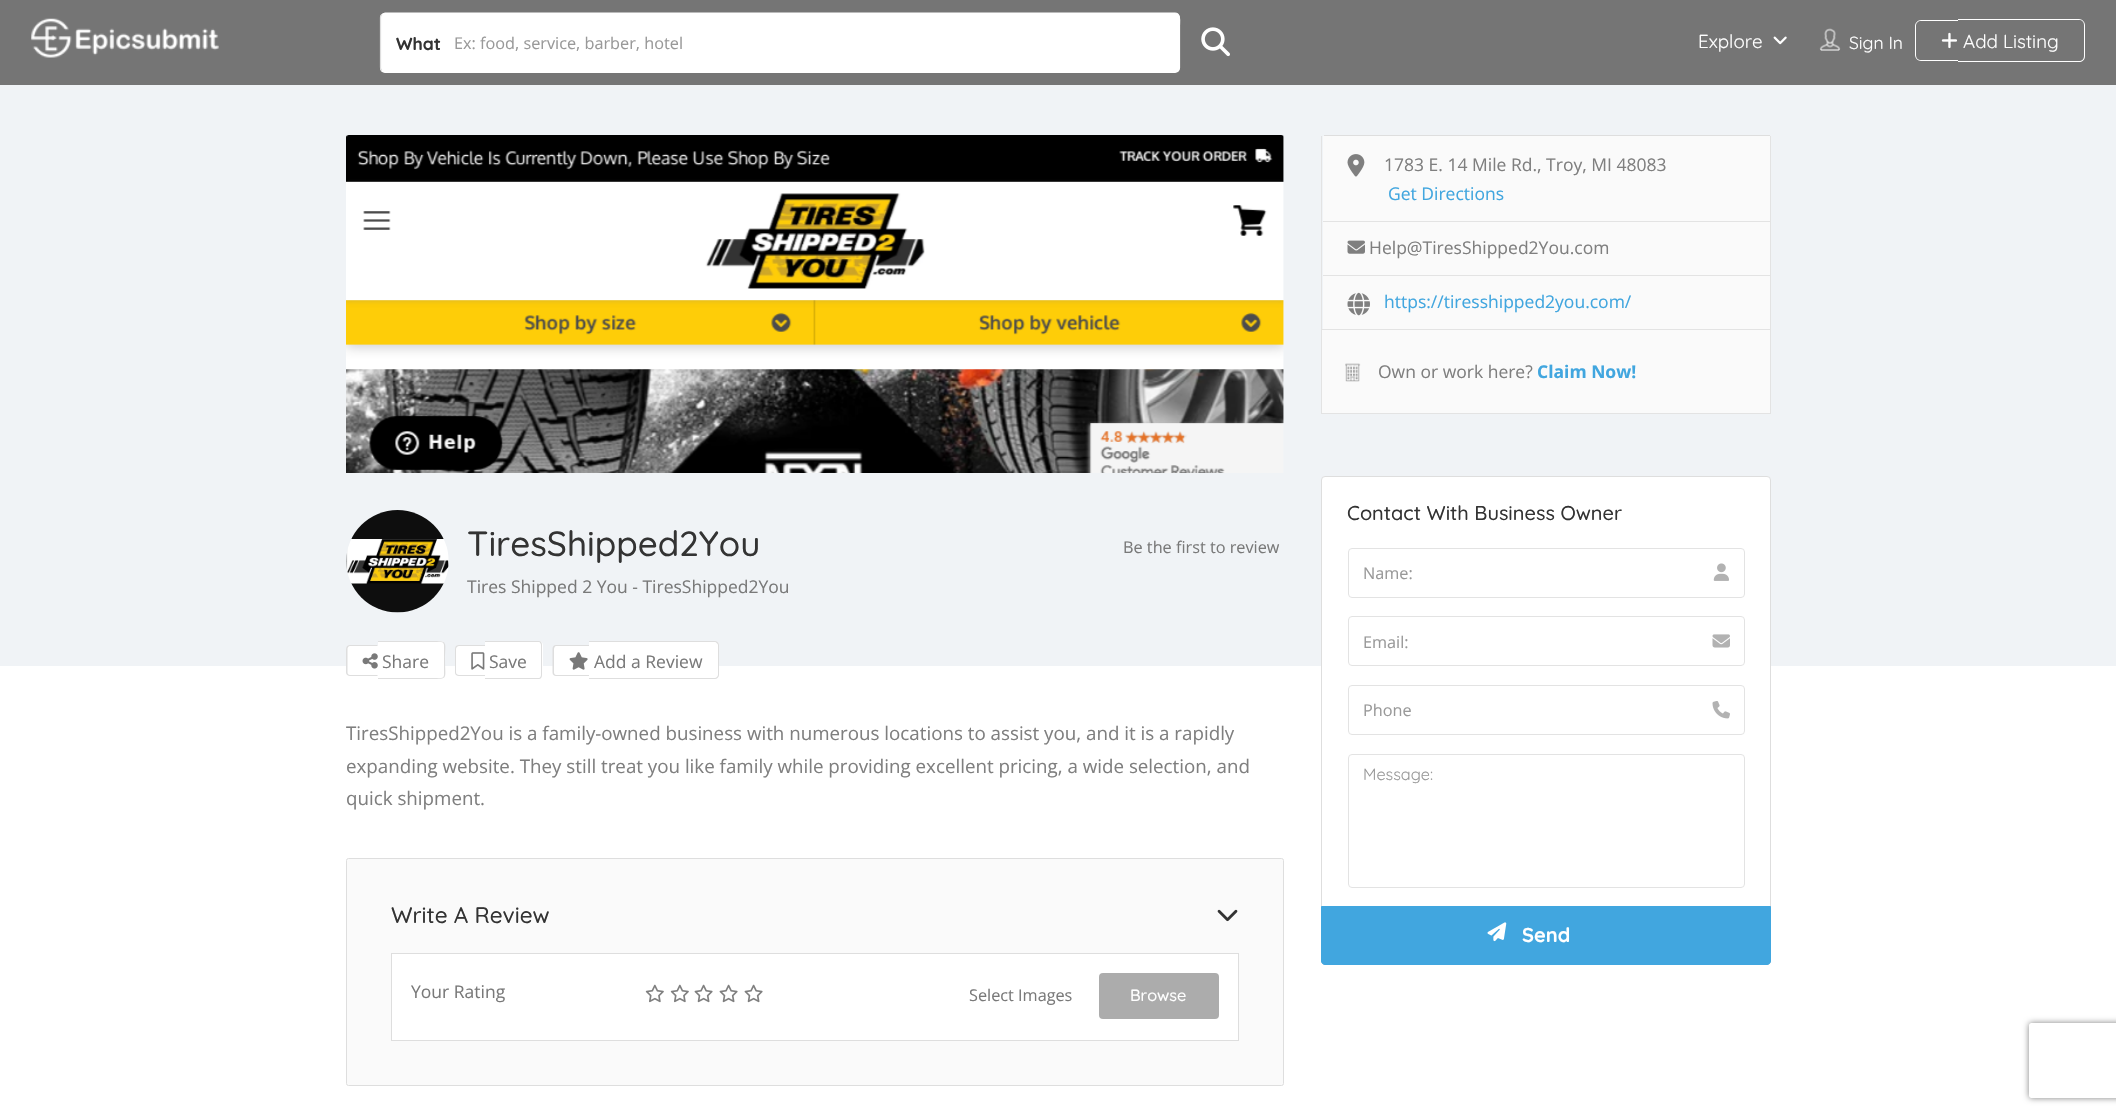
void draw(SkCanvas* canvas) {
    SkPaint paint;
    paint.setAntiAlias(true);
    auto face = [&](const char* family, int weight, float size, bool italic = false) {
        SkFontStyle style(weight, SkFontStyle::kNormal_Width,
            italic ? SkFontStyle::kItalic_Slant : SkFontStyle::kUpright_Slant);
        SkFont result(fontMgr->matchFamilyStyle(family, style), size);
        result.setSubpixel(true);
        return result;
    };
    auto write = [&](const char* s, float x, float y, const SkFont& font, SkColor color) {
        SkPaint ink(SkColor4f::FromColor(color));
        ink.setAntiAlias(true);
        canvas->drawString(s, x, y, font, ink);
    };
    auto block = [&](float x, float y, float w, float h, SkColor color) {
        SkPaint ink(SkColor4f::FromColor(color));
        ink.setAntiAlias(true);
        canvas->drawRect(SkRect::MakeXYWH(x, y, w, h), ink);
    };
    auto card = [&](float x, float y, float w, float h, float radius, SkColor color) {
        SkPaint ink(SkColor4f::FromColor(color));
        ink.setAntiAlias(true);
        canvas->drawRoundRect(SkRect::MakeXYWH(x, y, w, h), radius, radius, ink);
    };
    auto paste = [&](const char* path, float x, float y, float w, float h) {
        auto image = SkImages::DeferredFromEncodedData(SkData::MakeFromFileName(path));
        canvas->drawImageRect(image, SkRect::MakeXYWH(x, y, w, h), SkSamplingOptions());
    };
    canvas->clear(SK_ColorWHITE);
    block(0, 0, 2116, 85, SkColorSetRGB(117, 117, 117));
    paste("pic1.png", 31, 18, 188, 40);
    card(380, 13, 800, 60, 5, SK_ColorWHITE);
    paint.setStyle(SkPaint::kStroke_Style);
    paint.setStrokeWidth(1.2f);
    paint.setColor(SK_ColorWHITE);
    canvas->drawPath(SkPathBuilder().moveTo(382, 14.5f).lineTo(385, 13).lineTo(1175, 13).cubicTo(1181, 13, 1179.5f, 22.5f, 1179.5f, 26).lineTo(1179.5f, 68).lineTo(1178, 70.5f).lineTo(1175, 72).lineTo(385, 72).lineTo(382, 70.5f).detach(), paint);
    paint.setColor(SkColorSetRGB(222, 222, 222));
    canvas->drawPath(SkPathBuilder().moveTo(382, 70.5f).cubicTo(381, 70, 380.5f, 68.5f, 380.5f, 67.5f).lineTo(380.5f, 17.5f).cubicTo(380.5f, 16.5f, 381, 15, 382, 14.5f).detach(), paint);
    auto kFont1 = face("Quicksand", 700, 17.5f);
    write("What", 396, 50, kFont1, SkColorSetRGB(51, 51, 51));
    auto kFont2 = face("Open Sans", 400, 16.25f);
    write("Ex: food, service, barber, hotel", 454, 49, kFont2, SkColorSetRGB(153, 153, 153));
    paste("pic2.png", 1201, 27, 29, 30);
    auto kFont3 = face("Quicksand", 400, 18.75f);
    write("Explore", 1698, 48, kFont3, SK_ColorWHITE);
    paste("pic3.png", 1773, 36, 14, 9);
    paste("pic4.png", 1819, 28, 22, 23);
    auto kFont4 = face("Quicksand", 400, 17.5f);
    write("Sign In", 1849, 49, kFont4, SK_ColorWHITE);
    paint.setStyle(SkPaint::kFill_Style);
    paint.setColor(SK_ColorWHITE);
    canvas->drawPath(SkPathBuilder(SkPathFillType::kEvenOdd).moveTo(1921, 20).lineTo(1958, 20).lineTo(1958, 61).lineTo(1921, 61).cubicTo(1918, 61, 1915, 58, 1915, 55).lineTo(1915, 26).cubicTo(1915, 23, 1918, 20, 1921, 20).close().moveTo(1921, 21).lineTo(1958, 21).lineTo(1958, 60).lineTo(1921, 60).cubicTo(1918, 60, 1916, 58, 1916, 55).lineTo(1916, 26).cubicTo(1916, 23, 1918, 21, 1921, 21).close().detach(), paint);
    canvas->drawPath(SkPathBuilder(SkPathFillType::kEvenOdd).moveTo(1958, 19).lineTo(2079, 19).cubicTo(2082, 19, 2085, 22, 2085, 25).lineTo(2085, 56).cubicTo(2085, 60, 2082, 62, 2079, 62).lineTo(1958, 62).close().moveTo(1958, 20).lineTo(2079, 20).cubicTo(2082, 20, 2084, 22, 2084, 25).lineTo(2084, 56).cubicTo(2084, 59, 2082, 61, 2079, 61).lineTo(1958, 61).close().detach(), paint);
    paste("pic5.png", 1941, 32, 16, 17);
    write("Add Listing", 1963, 48, kFont3, SK_ColorWHITE);
    auto kFont5 = face("Open Sans", 400, 18.75f);
    write("TiresShipped2You is a family-owned business with numerous locations to assist you, and it is a rapidly", 346, 740, kFont5, SkColorSetRGB(127, 127, 127));
    write("expanding website. They still treat you like family while providing excellent pricing, a wide selection, and", 346, 773, kFont5, SkColorSetRGB(127, 127, 127));
    write("quick shipment.", 346, 805, kFont5, SkColorSetRGB(127, 127, 127));
    paint.setColor(SkColorSetRGB(250, 250, 250));
    canvas->drawRoundRect(SkRect::MakeXYWH(346.5f, 858.5f, 937, 227), 2, 2, paint);
    paint.setStyle(SkPaint::kStroke_Style);
    paint.setStrokeWidth(1);
    paint.setColor(SkColorSetRGB(222, 222, 222));
    canvas->drawRoundRect(SkRect::MakeXYWH(346.5f, 858.5f, 937, 227), 2, 2, paint);
    auto kFont6 = face("Quicksand", 500, 22.5f);
    write("Write A Review", 391, 923, kFont6, SkColorSetRGB(51, 51, 51));
    paste("pic6.png", 1217, 909, 21, 13);
    paint.setStyle(SkPaint::kFill_Style);
    paint.setColor(SK_ColorWHITE);
    canvas->drawRect(SkRect::MakeXYWH(391.5f, 953.5f, 847, 87), paint);
    paint.setStyle(SkPaint::kStroke_Style);
    paint.setColor(SkColorSetRGB(222, 222, 222));
    canvas->drawRect(SkRect::MakeXYWH(391.5f, 953.5f, 847, 87), paint);
    auto kFont7 = face("Open Sans", 400, 17.5f);
    write("Your Rating", 411, 998, kFont7, SkColorSetRGB(121, 121, 121));
    paste("pic7.png", 645, 984, 19, 19);
    paste("pic7.png", 670, 984, 19, 19);
    paste("pic8.png", 694, 984, 19, 19);
    paste("pic8.png", 719, 984, 19, 19);
    paste("pic8.png", 744, 984, 19, 19);
    write("Select Images", 969, 1001, kFont2, SkColorSetRGB(121, 121, 121));
    card(1099, 973, 120, 46, 4, SkColorSetRGB(172, 172, 172));
    auto kFont8 = face("Quicksand", 500, 16.25f);
    write("Browse", 1130, 1001, kFont8, SK_ColorWHITE);
    block(0, 85, 2116, 581, SkColorSetRGB(240, 243, 246));
    block(1324, 135, 446, 1, SkColorSetRGB(222, 222, 222));
    block(1770, 136, 1, 278, SkColorSetRGB(227, 227, 227));
    block(1321, 329, 450, 1, SkColorSetRGB(227, 227, 227));
    block(1321, 136, 1, 194, SkColorSetRGB(227, 227, 227));
    block(1323, 136, 447, 139, SkColorSetRGB(250, 250, 250));
    block(1323, 221, 447, 1, SkColorSetRGB(227, 227, 227));
    paste("pic9.png", 1347, 154, 18, 23);
    write("1783 E. 14 Mile Rd., Troy, MI 48083", 1384, 171, kFont7, SkColorSetRGB(127, 127, 127));
    write("Get Directions", 1388, 200, kFont7, SkColorSetRGB(65, 166, 223));
    block(1323, 275, 447, 1, SkColorSetRGB(227, 227, 227));
    paste("pic10.png", 1347, 240, 18, 14);
    write("Help@TiresShipped2You.com", 1369, 254, kFont7, SkColorSetRGB(127, 127, 127));
    block(1323, 276, 447, 53, SkColorSetRGB(250, 250, 250));
    paste("pic11.png", 1347, 292, 23, 24);
    write("https://tiresshipped2you.com/", 1384, 308, kFont7, SkColorSetRGB(65, 166, 223));
    block(1322, 330, 448, 83, SkColorSetRGB(250, 250, 250));
    block(1321, 413, 450, 1, SkColorSetRGB(227, 227, 227));
    block(1321, 330, 1, 84, SkColorSetRGB(227, 227, 227));
    paste("pic12.png", 1345, 363, 16, 19);
    write("Own or work here?", 1378, 378, kFont7, SkColorSetRGB(127, 127, 127));
    auto kFont9 = face("Open Sans", 700, 17.5f);
    write("Claim Now!", 1537, 378, kFont9, SkColorSetRGB(65, 166, 223));
    paint.setStyle(SkPaint::kFill_Style);
    paint.setColor(SK_ColorWHITE);
    canvas->drawRoundRect(SkRect::MakeXYWH(1321.5f, 476.5f, 449, 488), 3.5f, 3.5f, paint);
    paint.setStyle(SkPaint::kStroke_Style);
    paint.setColor(SkColorSetRGB(222, 222, 222));
    canvas->drawRoundRect(SkRect::MakeXYWH(1321.5f, 476.5f, 449, 488), 3.5f, 3.5f, paint);
    auto kFont10 = face("Quicksand", 500, 20);
    write("Contact With Business Owner", 1347, 520, kFont10, SkColorSetRGB(51, 51, 51));
    paint.setColor(SkColorSetRGB(227, 227, 227));
    canvas->drawRoundRect(SkRect::MakeXYWH(1348.5f, 548.5f, 396, 49), 3.5f, 3.5f, paint);
    write("Name:", 1363, 579, kFont2, SkColorSetRGB(153, 153, 153));
    paste("pic13.png", 1713, 563, 16, 18);
    canvas->drawRoundRect(SkRect::MakeXYWH(1348.5f, 616.5f, 396, 49), 3.5f, 3.5f, paint);
    write("Email:", 1363, 648, kFont2, SkColorSetRGB(153, 153, 153));
    paste("pic14.png", 1712, 634, 18, 14);
    canvas->drawRoundRect(SkRect::MakeXYWH(1348.5f, 685.5f, 396, 49), 3.5f, 3.5f, paint);
    write("Phone", 1363, 716, kFont2, SkColorSetRGB(153, 153, 153));
    paste("pic15.png", 1712, 701, 18, 18);
    canvas->drawRoundRect(SkRect::MakeXYWH(1348.5f, 754.5f, 396, 133), 3.5f, 3.5f, paint);
    auto kFont11 = face("Quicksand", 400, 16.25f);
    write("Message:", 1363, 780, kFont11, SkColorSetRGB(153, 153, 153));
    paint.setStyle(SkPaint::kFill_Style);
    paint.setColor(SkColorSetRGB(65, 166, 223));
    canvas->drawPath(SkPathBuilder().moveTo(1321.5f, 906.5f).lineTo(1770.5f, 906.5f).lineTo(1770.5f, 961).cubicTo(1770.5f, 963, 1769, 964.5f, 1767, 964.5f).lineTo(1325, 964.5f).cubicTo(1323, 964.5f, 1321.5f, 963, 1321.5f, 961).close().detach(), paint);
    paint.setStyle(SkPaint::kStroke_Style);
    canvas->drawPath(SkPathBuilder().moveTo(1321.5f, 906.5f).lineTo(1770.5f, 906.5f).lineTo(1770.5f, 961).cubicTo(1770.5f, 963, 1769, 964.5f, 1767, 964.5f).lineTo(1325, 964.5f).cubicTo(1323, 964.5f, 1321.5f, 963, 1321.5f, 961).close().detach(), paint);
    paste("pic16.png", 1487, 922, 20, 20);
    auto kFont12 = face("Quicksand", 700, 20);
    write("Send", 1522, 942, kFont12, SK_ColorWHITE);
    paste("pic17.png", 346, 135, 938, 338);
    paste("pic18.png", 346, 510, 103, 103);
    auto kFont13 = face("Quicksand", 500, 35);
    write("TiresShipped2You", 467, 556, kFont13, SkColorSetRGB(51, 51, 51));
    write("Tires Shipped 2 You - TiresShipped2You", 467, 593, kFont7, SkColorSetRGB(121, 121, 121));
    write("Be the first to review", 1123, 553, kFont2, SkColorSetRGB(121, 121, 121));
    paint.setStyle(SkPaint::kFill_Style);
    paint.setColor(SK_ColorWHITE);
    canvas->drawPath(SkPathBuilder().moveTo(350, 645).lineTo(378, 645).lineTo(378, 676).lineTo(350, 676).cubicTo(348, 676, 346, 674, 346, 672).lineTo(346, 649).cubicTo(346, 647, 348, 645, 350, 645).close().detach(), paint);
    paint.setColor(SkColorSetRGB(222, 222, 222));
    canvas->drawPath(SkPathBuilder(SkPathFillType::kEvenOdd).moveTo(350, 645).lineTo(377.5f, 645).lineTo(377.5f, 676).lineTo(350, 676).cubicTo(348, 676, 346, 674.5f, 346, 672.5f).lineTo(346, 649).cubicTo(346, 646.5f, 348, 645, 350, 645).close().moveTo(350, 646).lineTo(377.5f, 646).lineTo(377.5f, 675).lineTo(350, 675).cubicTo(348.5f, 675, 347.5f, 674, 347.5f, 672.5f).lineTo(347.5f, 649).cubicTo(347.5f, 647.5f, 348.5f, 646, 350, 646).close().detach(), paint);
    paint.setColor(SK_ColorWHITE);
    canvas->drawPath(SkPathBuilder().moveTo(378, 641).lineTo(441, 641).cubicTo(443, 641, 445, 643, 445, 645).lineTo(445, 675).cubicTo(445, 677, 443, 679, 441, 679).lineTo(378, 679).close().detach(), paint);
    paint.setColor(SkColorSetRGB(222, 222, 222));
    canvas->drawPath(SkPathBuilder(SkPathFillType::kEvenOdd).moveTo(378, 641).lineTo(431, 641).cubicTo(449, 641, 445, 641, 445, 660).cubicTo(445, 679, 449, 679, 431, 679).lineTo(378, 679).close().moveTo(378, 642).lineTo(441, 642).cubicTo(443, 642, 444, 644, 444, 645).lineTo(444, 675).cubicTo(444, 676, 443, 678, 441, 678).lineTo(378, 678).close().detach(), paint);
    paste("pic19.png", 362, 653, 16, 16);
    write("Share", 382, 668, kFont7, SkColorSetRGB(121, 121, 121));
    paint.setColor(SK_ColorWHITE);
    canvas->drawPath(SkPathBuilder().moveTo(459, 645).lineTo(485, 645).lineTo(485, 676).lineTo(459, 676).cubicTo(457, 676, 455, 674, 455, 672).lineTo(455, 649).cubicTo(455, 647, 457, 645, 459, 645).close().detach(), paint);
    paint.setColor(SkColorSetRGB(222, 222, 222));
    canvas->drawPath(SkPathBuilder(SkPathFillType::kEvenOdd).moveTo(459, 645).lineTo(485, 645).lineTo(485, 676).lineTo(459, 676).cubicTo(456.5f, 676, 455, 674.5f, 455, 672.5f).lineTo(455, 649).cubicTo(455, 646.5f, 456.5f, 645, 459, 645).close().moveTo(459, 646).lineTo(485, 646).lineTo(485, 675).lineTo(459, 675).cubicTo(457.5f, 675, 456, 674, 456, 672.5f).lineTo(456, 649).cubicTo(456, 647.5f, 457.5f, 646, 459, 646).close().detach(), paint);
    paint.setColor(SK_ColorWHITE);
    canvas->drawPath(SkPathBuilder().moveTo(485, 641).lineTo(539, 641).cubicTo(541, 641, 543, 643, 543, 645).lineTo(543, 675).cubicTo(543, 677, 541, 679, 539, 679).lineTo(485, 679).close().detach(), paint);
    paint.setColor(SkColorSetRGB(222, 222, 222));
    canvas->drawPath(SkPathBuilder(SkPathFillType::kEvenOdd).moveTo(485, 641).lineTo(539, 641).cubicTo(541, 641, 542, 643, 542, 645).lineTo(542, 675).cubicTo(542, 677, 541, 679, 539, 679).lineTo(485, 679).close().moveTo(485, 642).lineTo(539, 642).cubicTo(540, 642, 541, 644, 541, 645).lineTo(541, 675).cubicTo(541, 676, 540, 678, 539, 678).lineTo(485, 678).close().detach(), paint);
    paste("pic20.png", 471, 652, 14, 18);
    write("Save", 489, 668, kFont7, SkColorSetRGB(121, 121, 121));
    paint.setColor(SK_ColorWHITE);
    canvas->drawPath(SkPathBuilder().moveTo(557, 645).lineTo(589, 645).lineTo(589, 676).lineTo(557, 676).cubicTo(555, 676, 553, 674, 553, 672).lineTo(553, 649).cubicTo(553, 647, 555, 645, 557, 645).close().detach(), paint);
    paint.setColor(SkColorSetRGB(222, 222, 222));
    canvas->drawPath(SkPathBuilder(SkPathFillType::kEvenOdd).moveTo(556, 645).lineTo(589, 645).lineTo(589, 676).lineTo(556, 676).cubicTo(554, 676, 552.5f, 674.5f, 552.5f, 672.5f).lineTo(552.5f, 649).cubicTo(552.5f, 646.5f, 554, 645, 556, 645).close().moveTo(556, 646).lineTo(589, 646).lineTo(589, 675).lineTo(556, 675).cubicTo(555, 675, 554, 674, 554, 672.5f).lineTo(554, 649).cubicTo(554, 647.5f, 555, 646, 556, 646).close().detach(), paint);
    paint.setColor(SK_ColorWHITE);
    canvas->drawPath(SkPathBuilder().moveTo(589, 641).lineTo(715, 641).cubicTo(717, 641, 719, 643, 719, 645).lineTo(719, 675).cubicTo(719, 677, 717, 679, 715, 679).lineTo(589, 679).close().detach(), paint);
    paint.setColor(SkColorSetRGB(222, 222, 222));
    canvas->drawPath(SkPathBuilder(SkPathFillType::kEvenOdd).moveTo(589, 641).lineTo(715, 641).cubicTo(717, 641, 719, 643, 719, 645).lineTo(719, 675).cubicTo(719, 677, 717, 679, 715, 679).lineTo(589, 679).close().moveTo(589, 642).lineTo(715, 642).cubicTo(716, 642, 718, 644, 718, 645).lineTo(718, 675).cubicTo(718, 676, 716, 678, 715, 678).lineTo(589, 678).close().detach(), paint);
    paste("pic21.png", 569, 652, 19, 18);
    write("Add a Review", 594, 668, kFont7, SkColorSetRGB(121, 121, 121));
    canvas->save();
    canvas->clipPath(SkPathBuilder(SkPathFillType::kEvenOdd).moveTo(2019, 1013).lineTo(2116, 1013).lineTo(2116, 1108).lineTo(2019, 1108).close().moveTo(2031.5f, 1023).lineTo(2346.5f, 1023).cubicTo(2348, 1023, 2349, 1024, 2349, 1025.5f).lineTo(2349, 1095.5f).cubicTo(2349, 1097, 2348, 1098, 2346.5f, 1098).lineTo(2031.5f, 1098).cubicTo(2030, 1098, 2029, 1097, 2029, 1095.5f).lineTo(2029, 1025.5f).cubicTo(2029, 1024, 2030, 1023, 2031.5f, 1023).close().detach(), true);
    paint.setColor(SkColorSetRGB(128, 128, 128));
    paint.setMaskFilter(SkMaskFilter::MakeBlur(kNormal_SkBlurStyle, 3));
    canvas->drawRoundRect(SkRect::MakeXYWH(2029, 1023, 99, 75), 2.5f, 2.5f, paint);
    paint.setMaskFilter(nullptr);
    canvas->restore();
}
